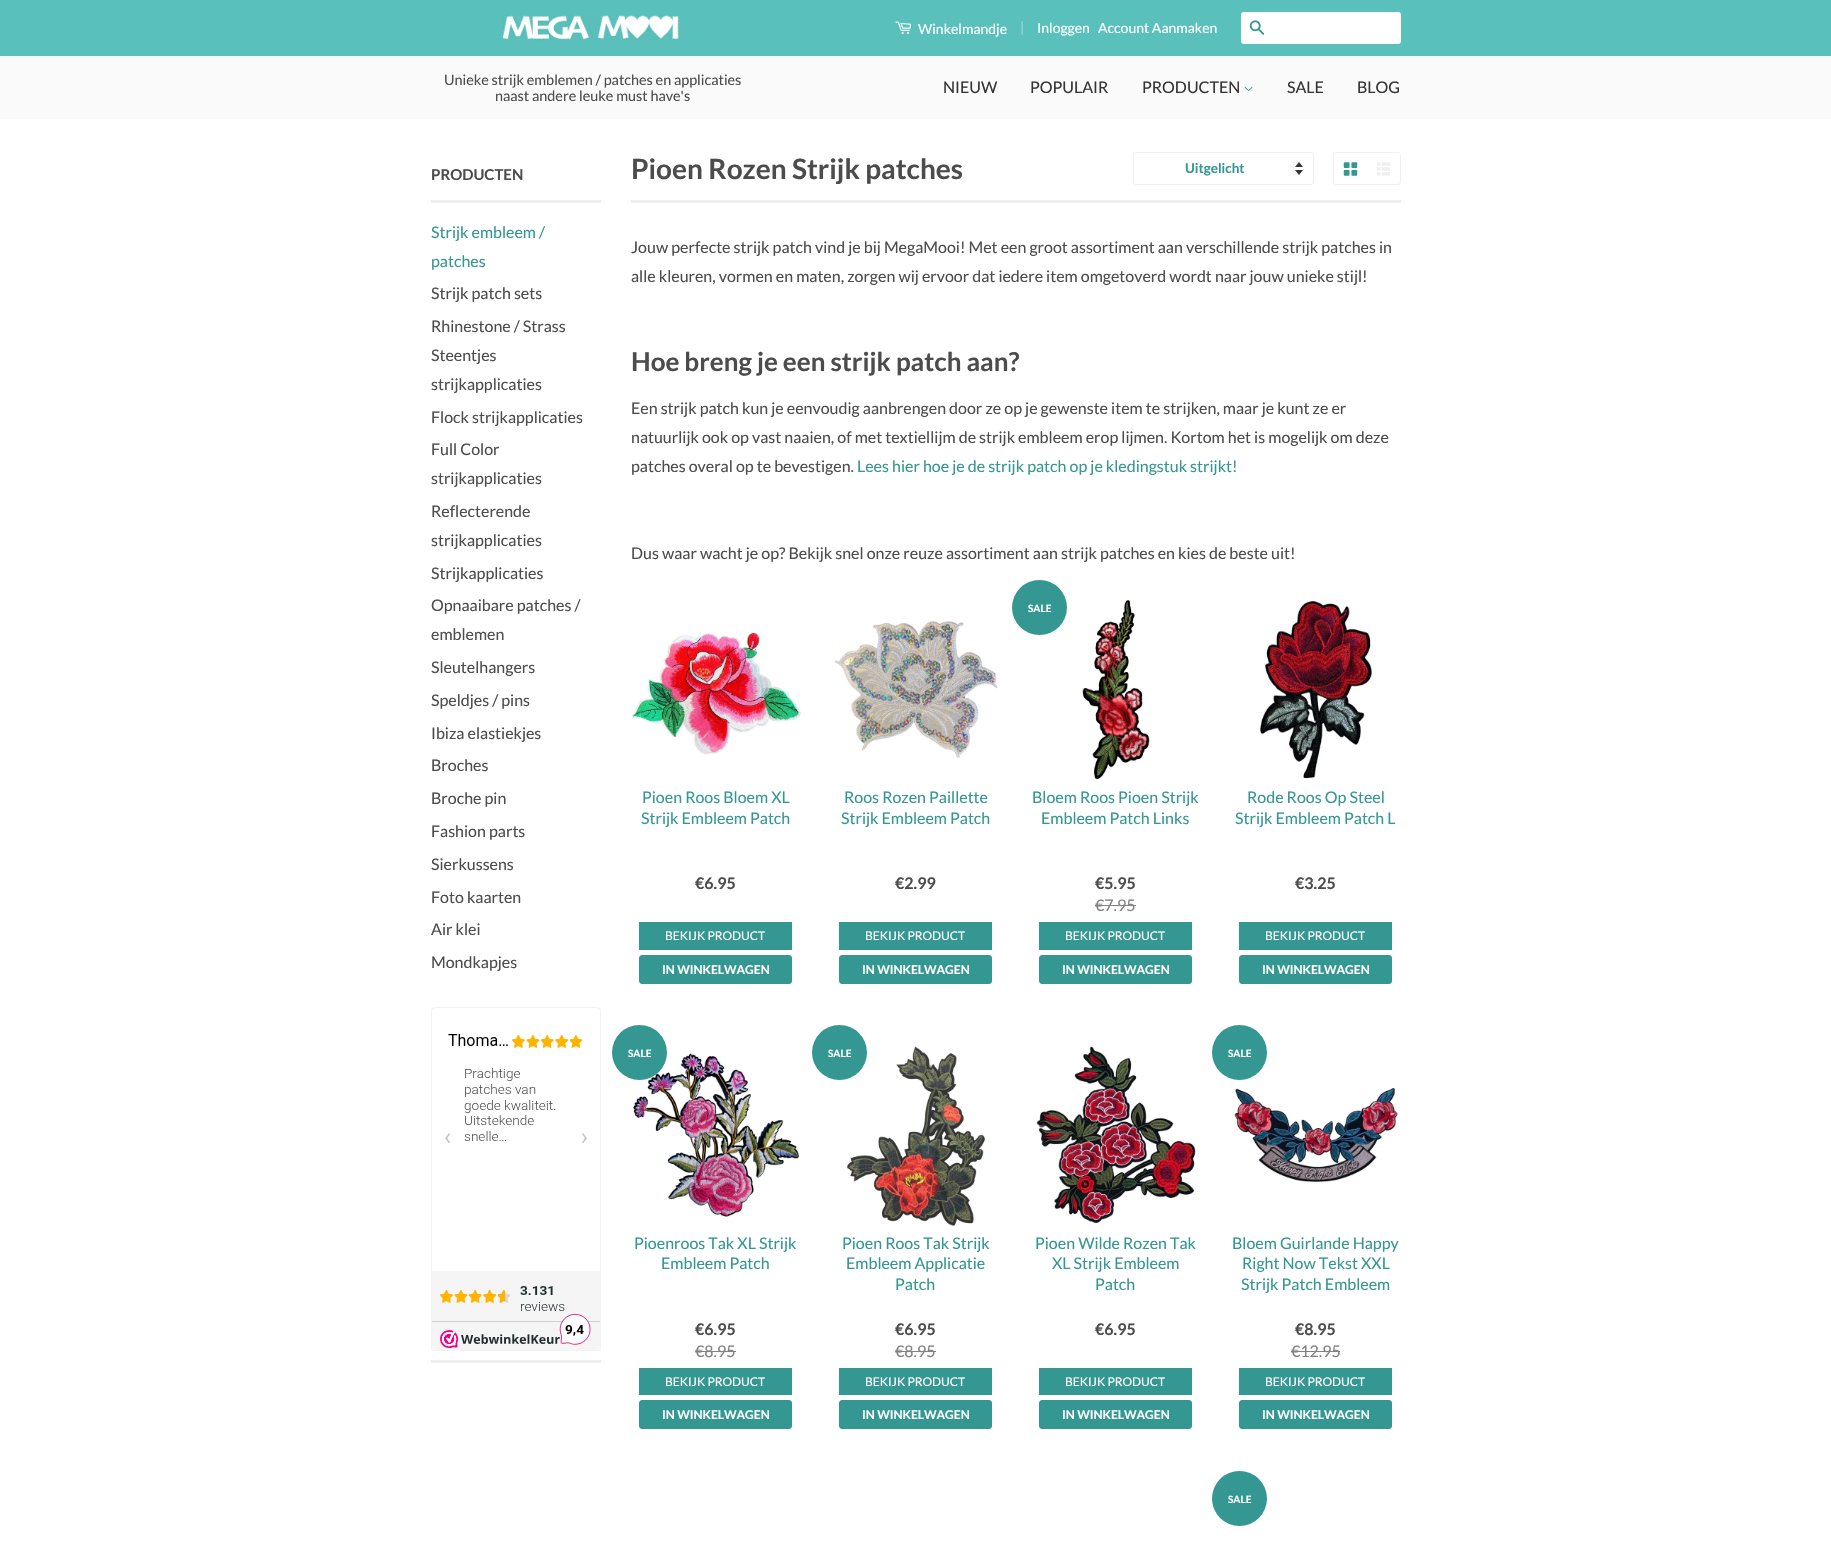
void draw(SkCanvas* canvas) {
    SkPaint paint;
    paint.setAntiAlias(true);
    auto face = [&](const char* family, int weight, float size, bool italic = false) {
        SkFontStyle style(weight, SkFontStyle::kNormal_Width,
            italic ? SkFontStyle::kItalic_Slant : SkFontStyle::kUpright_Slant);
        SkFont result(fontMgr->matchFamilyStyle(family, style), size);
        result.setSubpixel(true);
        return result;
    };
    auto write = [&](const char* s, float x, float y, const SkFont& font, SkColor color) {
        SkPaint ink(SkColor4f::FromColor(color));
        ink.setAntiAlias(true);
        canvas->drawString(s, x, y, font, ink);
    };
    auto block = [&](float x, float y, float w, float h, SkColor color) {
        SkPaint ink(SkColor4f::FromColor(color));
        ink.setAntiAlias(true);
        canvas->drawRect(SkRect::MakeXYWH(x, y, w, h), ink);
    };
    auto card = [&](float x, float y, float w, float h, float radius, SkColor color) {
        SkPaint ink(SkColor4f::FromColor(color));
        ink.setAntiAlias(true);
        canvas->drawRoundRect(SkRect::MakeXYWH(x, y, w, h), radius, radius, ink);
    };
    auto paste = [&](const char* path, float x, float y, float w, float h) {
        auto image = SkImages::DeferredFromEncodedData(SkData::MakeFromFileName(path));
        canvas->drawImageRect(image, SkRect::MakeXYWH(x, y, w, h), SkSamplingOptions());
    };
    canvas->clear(SK_ColorWHITE);
    block(0, 0, 1831, 56, SkColorSetRGB(90, 192, 187));
    paste("pic1.png", 502, 15, 177, 26);
    paste("pic2.png", 895, 21, 16, 13);
    auto kFont1 = face("Lato", 400, 14);
    write("Winkelmandje", 918, 34, kFont1, SK_ColorWHITE);
    write("|", 1020, 32, kFont1, SkColorSetRGB(156, 217, 214));
    write("Inloggen", 1037, 33, kFont1, SK_ColorWHITE);
    write("Account Aanmaken", 1098, 33, kFont1, SK_ColorWHITE);
    card(1241, 12, 160, 32, 3, SK_ColorWHITE);
    paste("pic3.png", 1249, 20, 16, 15);
    block(0, 56, 1831, 63, SkColorSetRGB(250, 250, 250));
    auto kFont2 = face("Lato", 400, 14.4f);
    write("Unieke strijk emblemen / patches en applicaties", 444, 85, kFont2, SkColorSetRGB(76, 76, 76));
    write("naast andere leuke must have's", 495, 101, kFont2, SkColorSetRGB(76, 76, 76));
    auto kFont3 = face("Lato", 400, 16);
    write("NIEUW", 943, 93, kFont3, SkColorSetRGB(51, 51, 51));
    write("POPULAIR", 1030, 93, kFont3, SkColorSetRGB(51, 51, 51));
    write("PRODUCTEN", 1142, 93, kFont3, SkColorSetRGB(51, 51, 51));
    paste("pic4.png", 1244, 86, 9, 6);
    write("SALE", 1287, 93, kFont3, SkColorSetRGB(51, 51, 51));
    write("BLOG", 1357, 93, kFont3, SkColorSetRGB(51, 51, 51));
    block(431, 200, 170, 3, SkColorSetRGB(240, 240, 240));
    auto kFont4 = face("Lato", 700, 15);
    write("PRODUCTEN", 431, 180, kFont4, SkColorSetRGB(76, 76, 76));
    write("Strijk embleem /", 431, 238, kFont3, SkColorSetRGB(52, 151, 146));
    write("patches", 431, 267, kFont3, SkColorSetRGB(52, 151, 146));
    write("Strijk patch sets", 431, 299, kFont3, SkColorSetRGB(76, 76, 76));
    write("Rhinestone / Strass", 431, 332, kFont3, SkColorSetRGB(76, 76, 76));
    write("Steentjes", 431, 361, kFont3, SkColorSetRGB(76, 76, 76));
    write("strijkapplicaties", 431, 390, kFont3, SkColorSetRGB(76, 76, 76));
    write("Flock strijkapplicaties", 431, 423, kFont3, SkColorSetRGB(76, 76, 76));
    write("Full Color", 431, 455, kFont3, SkColorSetRGB(76, 76, 76));
    write("strijkapplicaties", 431, 484, kFont3, SkColorSetRGB(76, 76, 76));
    write("Reflecterende", 431, 517, kFont3, SkColorSetRGB(76, 76, 76));
    write("strijkapplicaties", 431, 546, kFont3, SkColorSetRGB(76, 76, 76));
    write("Strijkapplicaties", 431, 579, kFont3, SkColorSetRGB(76, 76, 76));
    write("Opnaaibare patches /", 431, 611, kFont3, SkColorSetRGB(76, 76, 76));
    write("emblemen", 431, 640, kFont3, SkColorSetRGB(76, 76, 76));
    write("Sleutelhangers", 431, 673, kFont3, SkColorSetRGB(76, 76, 76));
    write("Speldjes / pins", 431, 706, kFont3, SkColorSetRGB(76, 76, 76));
    write("Ibiza elastiekjes", 431, 739, kFont3, SkColorSetRGB(76, 76, 76));
    write("Broches", 431, 771, kFont3, SkColorSetRGB(76, 76, 76));
    write("Broche pin", 431, 804, kFont3, SkColorSetRGB(76, 76, 76));
    write("Fashion parts", 431, 837, kFont3, SkColorSetRGB(76, 76, 76));
    write("Sierkussens", 431, 870, kFont3, SkColorSetRGB(76, 76, 76));
    write("Foto kaarten", 431, 903, kFont3, SkColorSetRGB(76, 76, 76));
    write("Air klei", 431, 935, kFont3, SkColorSetRGB(76, 76, 76));
    write("Mondkapjes", 431, 968, kFont3, SkColorSetRGB(76, 76, 76));
    block(431, 1360, 170, 3, SkColorSetRGB(240, 240, 240));
    paste("pic5.png", 431, 1007, 170, 344);
    block(631, 200, 770, 3, SkColorSetRGB(240, 240, 240));
    auto kFont5 = face("Lato", 700, 28);
    write("Pioen Rozen Strijk patches", 631, 179, kFont5, SkColorSetRGB(76, 76, 76));
    paste("pic6.png", 1295, 162, 8, 13);
    paint.setStyle(SkPaint::kStroke_Style);
    paint.setStrokeWidth(1);
    paint.setColor(SkColorSetRGB(240, 240, 240));
    canvas->drawRoundRect(SkRect::MakeXYWH(1133.5f, 152.5f, 180, 32), 2.5f, 2.5f, paint);
    auto kFont6 = face("Lato", 700, 13.5f);
    write("Uitgelicht", 1185, 173, kFont6, SkColorSetRGB(52, 151, 146));
    canvas->drawRoundRect(SkRect::MakeXYWH(1333.5f, 152.5f, 67, 32), 2.5f, 2.5f, paint);
    paste("pic7.png", 1343, 162, 15, 14);
    paste("pic8.png", 1377, 162, 13, 14);
    write("Jouw perfecte strijk patch vind je bij MegaMooi! Met een groot assortiment aan verschillende strijk patches in", 631, 253, kFont3, SkColorSetRGB(76, 76, 76));
    write("alle kleuren, vormen en maten, zorgen wij ervoor dat iedere item omgetoverd wordt naar jouw unieke stijl!", 631, 282, kFont3, SkColorSetRGB(76, 76, 76));
    auto kFont7 = face("Lato", 700, 26);
    write("Hoe breng je een strijk patch aan?", 631, 371, kFont7, SkColorSetRGB(76, 76, 76));
    write("Een strijk patch kun je eenvoudig aanbrengen door ze op je gewenste item te strijken, maar je kunt ze er", 631, 414, kFont3, SkColorSetRGB(76, 76, 76));
    write("natuurlijk ook op vast naaien, of met textiellijm de strijk embleem erop lijmen. Kortom het is mogelijk om deze", 631, 443, kFont3, SkColorSetRGB(76, 76, 76));
    write("patches overal op te bevestigen.", 631, 472, kFont3, SkColorSetRGB(76, 76, 76));
    write("Lees hier hoe je de strijk patch op je kledingstuk strijkt!", 857, 472, kFont3, SkColorSetRGB(52, 151, 146));
    write("Dus waar wacht je op? Bekijk snel onze reuze assortiment aan strijk patches en kies de beste uit!", 631, 559, kFont3, SkColorSetRGB(76, 76, 76));
    paste("pic9.png", 631, 631, 170, 124);
    write("Pioen Roos Bloem XL", 642, 803, kFont3, SkColorSetRGB(52, 151, 146));
    write("Strijk Embleem Patch", 641, 824, kFont3, SkColorSetRGB(52, 151, 146));
    auto kFont8 = face("Lato", 700, 16);
    write("€6.95", 695, 889, kFont8, SkColorSetRGB(76, 76, 76));
    block(639, 922, 153, 28, SkColorSetRGB(52, 151, 146));
    auto kFont9 = face("Lato", 400, 12);
    write("BEKIJK PRODUCT", 665, 940, kFont9, SK_ColorWHITE);
    paint.setStyle(SkPaint::kFill_Style);
    paint.setColor(SkColorSetRGB(52, 151, 146));
    canvas->drawRoundRect(SkRect::MakeXYWH(639.5f, 955.5f, 152, 28), 2.5f, 2.5f, paint);
    paint.setStyle(SkPaint::kStroke_Style);
    canvas->drawRoundRect(SkRect::MakeXYWH(639.5f, 955.5f, 152, 28), 2.5f, 2.5f, paint);
    auto kFont10 = face("Lato", 700, 12);
    write("IN WINKELWAGEN", 662, 974, kFont10, SK_ColorWHITE);
    paste("pic10.png", 834, 621, 164, 137);
    write("Roos Rozen Paillette", 844, 803, kFont3, SkColorSetRGB(52, 151, 146));
    write("Strijk Embleem Patch", 841, 824, kFont3, SkColorSetRGB(52, 151, 146));
    write("€2.99", 895, 889, kFont8, SkColorSetRGB(76, 76, 76));
    block(839, 922, 153, 28, SkColorSetRGB(52, 151, 146));
    write("BEKIJK PRODUCT", 865, 940, kFont9, SK_ColorWHITE);
    paint.setStyle(SkPaint::kFill_Style);
    canvas->drawRoundRect(SkRect::MakeXYWH(839.5f, 955.5f, 152, 28), 2.5f, 2.5f, paint);
    paint.setStyle(SkPaint::kStroke_Style);
    canvas->drawRoundRect(SkRect::MakeXYWH(839.5f, 955.5f, 152, 28), 2.5f, 2.5f, paint);
    write("IN WINKELWAGEN", 862, 974, kFont10, SK_ColorWHITE);
    paint.setStyle(SkPaint::kFill_Style);
    canvas->drawCircle(1039.5f, 607.5f, 27.5f, paint);
    auto kFont11 = face("Lato", 700, 10);
    write("SALE", 1028, 612, kFont11, SK_ColorWHITE);
    paste("pic11.png", 1082, 599, 68, 181);
    write("Bloem Roos Pioen Strijk", 1032, 803, kFont3, SkColorSetRGB(52, 151, 146));
    write("Embleem Patch Links", 1041, 824, kFont3, SkColorSetRGB(52, 151, 146));
    write("€5.95", 1095, 889, kFont8, SkColorSetRGB(76, 76, 76));
    write("€7.95", 1095, 911, kFont3, SkColorSetRGB(130, 130, 130));
    block(1095, 905, 41, 1, SkColorSetRGB(130, 130, 130));
    block(1039, 922, 153, 28, SkColorSetRGB(52, 151, 146));
    write("BEKIJK PRODUCT", 1065, 940, kFont9, SK_ColorWHITE);
    canvas->drawRoundRect(SkRect::MakeXYWH(1039.5f, 955.5f, 152, 28), 2.5f, 2.5f, paint);
    paint.setStyle(SkPaint::kStroke_Style);
    canvas->drawRoundRect(SkRect::MakeXYWH(1039.5f, 955.5f, 152, 28), 2.5f, 2.5f, paint);
    write("IN WINKELWAGEN", 1062, 974, kFont10, SK_ColorWHITE);
    paste("pic12.png", 1260, 601, 112, 178);
    write("Rode Roos Op Steel", 1247, 803, kFont3, SkColorSetRGB(52, 151, 146));
    write("Strijk Embleem Patch L", 1235, 824, kFont3, SkColorSetRGB(52, 151, 146));
    write("€3.25", 1295, 889, kFont8, SkColorSetRGB(76, 76, 76));
    block(1239, 922, 153, 28, SkColorSetRGB(52, 151, 146));
    write("BEKIJK PRODUCT", 1265, 940, kFont9, SK_ColorWHITE);
    paint.setStyle(SkPaint::kFill_Style);
    canvas->drawRoundRect(SkRect::MakeXYWH(1239.5f, 955.5f, 152, 28), 2.5f, 2.5f, paint);
    paint.setStyle(SkPaint::kStroke_Style);
    canvas->drawRoundRect(SkRect::MakeXYWH(1239.5f, 955.5f, 152, 28), 2.5f, 2.5f, paint);
    write("IN WINKELWAGEN", 1262, 974, kFont10, SK_ColorWHITE);
    paste("pic13.png", 633, 1053, 166, 164);
    paint.setStyle(SkPaint::kFill_Style);
    canvas->drawCircle(639.5f, 1052.5f, 27.5f, paint);
    write("SALE", 628, 1057, kFont11, SK_ColorWHITE);
    write("Pioenroos Tak XL Strijk", 634, 1249, kFont3, SkColorSetRGB(52, 151, 146));
    write("Embleem Patch", 661, 1269, kFont3, SkColorSetRGB(52, 151, 146));
    write("€6.95", 695, 1335, kFont8, SkColorSetRGB(76, 76, 76));
    write("€8.95", 695, 1357, kFont3, SkColorSetRGB(130, 130, 130));
    block(695, 1351, 41, 1, SkColorSetRGB(130, 130, 130));
    block(639, 1368, 153, 27, SkColorSetRGB(52, 151, 146));
    write("BEKIJK PRODUCT", 665, 1386, kFont9, SK_ColorWHITE);
    canvas->drawRoundRect(SkRect::MakeXYWH(639.5f, 1400.5f, 152, 28), 2.5f, 2.5f, paint);
    paint.setStyle(SkPaint::kStroke_Style);
    canvas->drawRoundRect(SkRect::MakeXYWH(639.5f, 1400.5f, 152, 28), 2.5f, 2.5f, paint);
    write("IN WINKELWAGEN", 662, 1419, kFont10, SK_ColorWHITE);
    paste("pic14.png", 847, 1046, 138, 180);
    paint.setStyle(SkPaint::kFill_Style);
    canvas->drawCircle(839.5f, 1052.5f, 27.5f, paint);
    write("SALE", 828, 1057, kFont11, SK_ColorWHITE);
    write("Pioen Roos Tak Strijk", 842, 1249, kFont3, SkColorSetRGB(52, 151, 146));
    write("Embleem Applicatie", 846, 1269, kFont3, SkColorSetRGB(52, 151, 146));
    write("Patch", 895, 1290, kFont3, SkColorSetRGB(52, 151, 146));
    write("€6.95", 895, 1335, kFont8, SkColorSetRGB(76, 76, 76));
    write("€8.95", 895, 1357, kFont3, SkColorSetRGB(130, 130, 130));
    block(895, 1351, 41, 1, SkColorSetRGB(130, 130, 130));
    block(839, 1368, 153, 27, SkColorSetRGB(52, 151, 146));
    write("BEKIJK PRODUCT", 865, 1386, kFont9, SK_ColorWHITE);
    canvas->drawRoundRect(SkRect::MakeXYWH(839.5f, 1400.5f, 152, 28), 2.5f, 2.5f, paint);
    paint.setStyle(SkPaint::kStroke_Style);
    canvas->drawRoundRect(SkRect::MakeXYWH(839.5f, 1400.5f, 152, 28), 2.5f, 2.5f, paint);
    write("IN WINKELWAGEN", 862, 1419, kFont10, SK_ColorWHITE);
    paste("pic15.png", 1036, 1046, 160, 177);
    write("Pioen Wilde Rozen Tak", 1035, 1249, kFont3, SkColorSetRGB(52, 151, 146));
    write("XL Strijk Embleem", 1052, 1269, kFont3, SkColorSetRGB(52, 151, 146));
    write("Patch", 1095, 1290, kFont3, SkColorSetRGB(52, 151, 146));
    write("€6.95", 1095, 1335, kFont8, SkColorSetRGB(76, 76, 76));
    block(1039, 1368, 153, 27, SkColorSetRGB(52, 151, 146));
    write("BEKIJK PRODUCT", 1065, 1386, kFont9, SK_ColorWHITE);
    paint.setStyle(SkPaint::kFill_Style);
    canvas->drawRoundRect(SkRect::MakeXYWH(1039.5f, 1400.5f, 152, 28), 2.5f, 2.5f, paint);
    paint.setStyle(SkPaint::kStroke_Style);
    canvas->drawRoundRect(SkRect::MakeXYWH(1039.5f, 1400.5f, 152, 28), 2.5f, 2.5f, paint);
    write("IN WINKELWAGEN", 1062, 1419, kFont10, SK_ColorWHITE);
    paint.setStyle(SkPaint::kFill_Style);
    canvas->drawCircle(1239.5f, 1052.5f, 27.5f, paint);
    write("SALE", 1228, 1057, kFont11, SK_ColorWHITE);
    paste("pic16.png", 1234, 1088, 164, 94);
    write("Bloem Guirlande Happy", 1232, 1249, kFont3, SkColorSetRGB(52, 151, 146));
    write("Right Now Tekst XXL", 1242, 1269, kFont3, SkColorSetRGB(52, 151, 146));
    write("Strijk Patch Embleem", 1241, 1290, kFont3, SkColorSetRGB(52, 151, 146));
    write("€8.95", 1295, 1335, kFont8, SkColorSetRGB(76, 76, 76));
    write("€12.95", 1291, 1357, kFont3, SkColorSetRGB(130, 130, 130));
    block(1291, 1351, 49, 1, SkColorSetRGB(130, 130, 130));
    block(1239, 1368, 153, 27, SkColorSetRGB(52, 151, 146));
    write("BEKIJK PRODUCT", 1265, 1386, kFont9, SK_ColorWHITE);
    canvas->drawRoundRect(SkRect::MakeXYWH(1239.5f, 1400.5f, 152, 28), 2.5f, 2.5f, paint);
    paint.setStyle(SkPaint::kStroke_Style);
    canvas->drawRoundRect(SkRect::MakeXYWH(1239.5f, 1400.5f, 152, 28), 2.5f, 2.5f, paint);
    write("IN WINKELWAGEN", 1262, 1419, kFont10, SK_ColorWHITE);
    paint.setStyle(SkPaint::kFill_Style);
    canvas->drawCircle(1239.5f, 1498.5f, 27.5f, paint);
    write("SALE", 1228, 1503, kFont11, SK_ColorWHITE);
}
